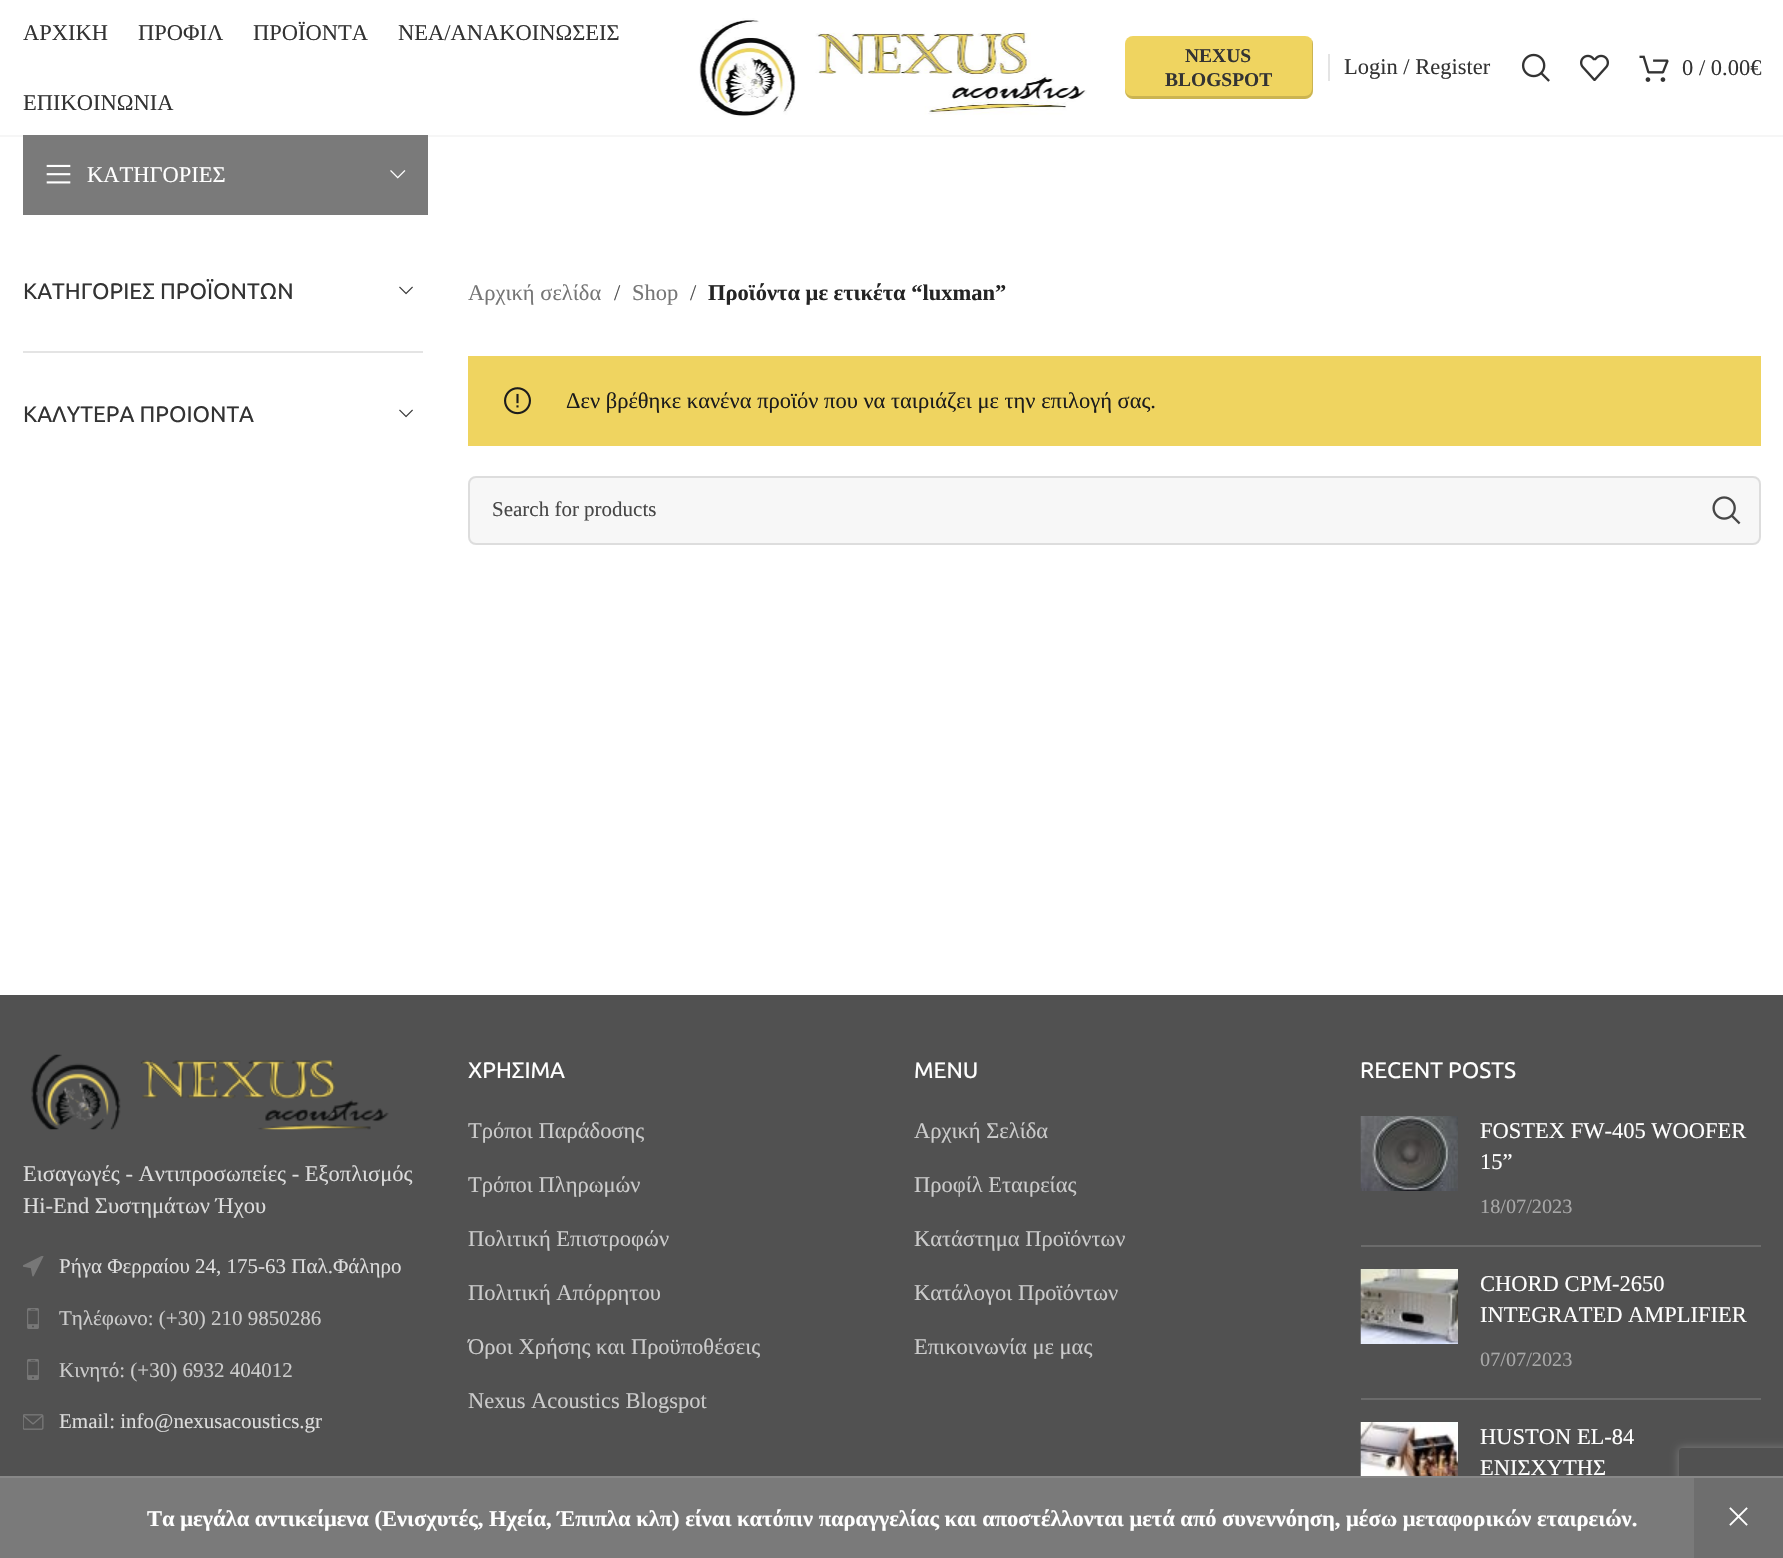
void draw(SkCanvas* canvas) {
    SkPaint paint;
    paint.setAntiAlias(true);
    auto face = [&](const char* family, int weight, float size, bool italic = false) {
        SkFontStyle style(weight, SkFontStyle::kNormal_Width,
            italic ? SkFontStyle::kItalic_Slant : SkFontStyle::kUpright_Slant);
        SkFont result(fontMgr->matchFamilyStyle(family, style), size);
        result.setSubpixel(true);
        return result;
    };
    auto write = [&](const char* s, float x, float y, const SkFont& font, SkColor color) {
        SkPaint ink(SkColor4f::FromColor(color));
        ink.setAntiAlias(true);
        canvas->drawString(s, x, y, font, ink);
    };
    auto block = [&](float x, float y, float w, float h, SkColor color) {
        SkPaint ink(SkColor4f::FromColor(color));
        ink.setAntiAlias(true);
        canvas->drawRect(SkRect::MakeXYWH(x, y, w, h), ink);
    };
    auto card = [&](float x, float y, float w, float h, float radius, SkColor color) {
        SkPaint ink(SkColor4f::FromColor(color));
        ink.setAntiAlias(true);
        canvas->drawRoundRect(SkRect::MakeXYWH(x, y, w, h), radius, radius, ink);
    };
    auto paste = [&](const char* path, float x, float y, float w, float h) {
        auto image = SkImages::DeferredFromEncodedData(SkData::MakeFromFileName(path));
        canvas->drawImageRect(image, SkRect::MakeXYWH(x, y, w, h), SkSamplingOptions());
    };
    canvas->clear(SK_ColorWHITE);
    block(0, 135, 1783, 2, SkColorSetRGB(246, 246, 246));
    auto kFont1 = face("Tinos", 400, 22.5f);
    write("ΑΡΧΙΚΗ", 23, 40, kFont1, SkColorSetRGB(51, 51, 51));
    write("ΠΡΟΦΙΛ", 138, 40, kFont1, SkColorSetRGB(51, 51, 51));
    write("ΠΡΟΪΟΝΤΑ", 253, 40, kFont1, SkColorSetRGB(51, 51, 51));
    write("ΝΕΑ/ΑΝΑΚΟΙΝΩΣΕΙΣ", 398, 40, kFont1, SkColorSetRGB(51, 51, 51));
    write("ΕΠΙΚΟΙΝΩΝΙΑ", 23, 110, kFont1, SkColorSetRGB(51, 51, 51));
    paste("pic1.png", 699, 18, 388, 99);
    card(1125, 36, 188, 63, 8, SkColorSetRGB(239, 212, 96));
    paint.setColor(SkColorSetARGB(38, 0, 0, 0));
    canvas->drawPath(SkPathBuilder().moveTo(1125, 88).lineTo(1125, 91).cubicTo(1125, 95, 1129, 99, 1133, 99).lineTo(1305, 99).cubicTo(1309, 99, 1313, 95, 1313, 91).lineTo(1313, 44).cubicTo(1313, 43, 1313, 41, 1312, 40).lineTo(1312, 88).cubicTo(1312, 93, 1309, 96, 1305, 96).lineTo(1132, 96).cubicTo(1128, 96, 1125, 93, 1125, 88).close().detach(), paint);
    auto kFont2 = face("Tinos", 700, 19.5f);
    write("NEXUS", 1185, 62, kFont2, SkColorSetRGB(51, 51, 51));
    write("BLOGSPOT", 1165, 86, kFont2, SkColorSetRGB(51, 51, 51));
    block(1328, 54, 2, 27, SkColorSetRGB(228, 228, 228));
    write("Login / Register", 1344, 74, kFont1, SkColorSetRGB(51, 51, 51));
    paste("pic2.png", 1521, 53, 29, 29);
    paste("pic3.png", 1580, 54, 29, 27);
    paste("pic4.png", 1639, 55, 30, 27);
    write("0 / 0.00€", 1682, 75, kFont1, SkColorSetRGB(51, 51, 51));
    block(23, 135, 405, 80, SkColorSetRGB(122, 122, 122));
    paste("pic5.png", 46, 164, 25, 20);
    write("ΚΑΤΗΓΟΡΙΕΣ", 87, 182, kFont1, SK_ColorWHITE);
    paste("pic6.png", 390, 170, 16, 9);
    block(23, 351, 400, 2, SkColorSetRGB(228, 228, 228));
    auto kFont3 = face("Ubuntu", 400, 22.5f);
    write("ΚΑΤΗΓΟΡΙΕΣ ΠΡΟΪΟΝΤΩΝ", 23, 299, kFont3, SkColorSetRGB(51, 51, 51));
    paste("pic7.png", 399, 286, 14, 9);
    write("ΚΑΛΥΤΕΡΑ ΠΡΟΙΟΝΤΑ", 23, 422, kFont3, SkColorSetRGB(51, 51, 51));
    paste("pic7.png", 399, 409, 14, 9);
    write("Αρχική σελίδα", 468, 300, kFont1, SkColorSetRGB(118, 118, 118));
    write("/", 614, 300, kFont1, SkColorSetRGB(79, 79, 79));
    write("Shop", 632, 300, kFont1, SkColorSetRGB(118, 118, 118));
    write("/", 690, 300, kFont1, SkColorSetRGB(79, 79, 79));
    auto kFont4 = face("Tinos", 700, 22.5f);
    write("Προϊόντα με ετικέτα “luxman”", 708, 300, kFont4, SkColorSetRGB(36, 36, 36));
    block(468, 356, 1293, 90, SkColorSetRGB(239, 212, 96));
    paste("pic8.png", 504, 387, 27, 28);
    write("Δεν βρέθηκε κανένα προϊόν που να ταιριάζει με την επιλογή σας.", 566, 408, kFont1, SkColorSetRGB(28, 28, 28));
    card(468, 476, 1293, 69, 8, SkColorSetRGB(247, 247, 247));
    paint.setStyle(SkPaint::kStroke_Style);
    paint.setStrokeWidth(2);
    paint.setColor(SkColorSetARGB(26, 0, 0, 0));
    canvas->drawRoundRect(SkRect::MakeXYWH(469, 477, 1291, 67), 7, 7, paint);
    auto kFont5 = face("Tinos", 400, 21);
    write("Search for products", 492, 516, kFont5, SkColorSetRGB(71, 71, 71));
    paste("pic9.png", 1712, 496, 29, 29);
    block(0, 995, 1783, 481, SkColorSetRGB(81, 81, 81));
    paste("pic10.png", 31, 1054, 358, 76);
    write("Εισαγωγές - Αντιπροσωπείες - Εξοπλισμός", 23, 1181, kFont1, SkColorSetRGB(220, 220, 220));
    write("Hi-End Συστημάτων Ήχου", 23, 1213, kFont1, SkColorSetRGB(220, 220, 220));
    paste("pic11.png", 23, 1256, 21, 21);
    write("Ρήγα Φερραίου 24, 175-63 Παλ.Φάληρο", 59, 1273, kFont5, SkColorSetRGB(220, 220, 220));
    paste("pic12.png", 27, 1308, 12, 21);
    write("Τηλέφωνο: (+30) 210 9850286", 59, 1325, kFont5, SkColorSetRGB(203, 203, 203));
    paste("pic12.png", 27, 1359, 12, 21);
    write("Κινητό: (+30) 6932 404012", 59, 1377, kFont5, SkColorSetRGB(203, 203, 203));
    paste("pic13.png", 23, 1414, 21, 16);
    write("Email: info@nexusacoustics.gr", 59, 1428, kFont5, SkColorSetRGB(220, 220, 220));
    write("ΧΡΗΣΙΜΑ", 468, 1078, kFont3, SK_ColorWHITE);
    write("Τρόποι Παράδοσης", 468, 1138, kFont1, SkColorSetRGB(203, 203, 203));
    write("Τρόποι Πληρωμών", 468, 1192, kFont1, SkColorSetRGB(203, 203, 203));
    write("Πολιτική Επιστροφών", 468, 1246, kFont1, SkColorSetRGB(203, 203, 203));
    write("Πολιτική Απόρρητου", 468, 1300, kFont1, SkColorSetRGB(203, 203, 203));
    write("Όροι Χρήσης και Προϋποθέσεις", 468, 1354, kFont1, SkColorSetRGB(203, 203, 203));
    write("Nexus Acoustics Blogspot", 468, 1408, kFont1, SkColorSetRGB(203, 203, 203));
    write("MENU", 914, 1078, kFont3, SK_ColorWHITE);
    write("Αρχική Σελίδα", 914, 1138, kFont1, SkColorSetRGB(203, 203, 203));
    write("Προφίλ Εταιρείας", 914, 1192, kFont1, SkColorSetRGB(203, 203, 203));
    write("Κατάστημα Προϊόντων", 914, 1246, kFont1, SkColorSetRGB(203, 203, 203));
    write("Κατάλογοι Προϊόντων", 914, 1300, kFont1, SkColorSetRGB(203, 203, 203));
    write("Επικοινωνία με μας", 914, 1354, kFont1, SkColorSetRGB(203, 203, 203));
    write("RECENT POSTS", 1360, 1078, kFont3, SK_ColorWHITE);
    block(1361, 1245, 400, 2, SkColorSetRGB(107, 107, 107));
    paste("pic14.png", 1360, 1116, 98, 75);
    write("FOSTEX FW-405 WOOFER", 1480, 1138, kFont1, SK_ColorWHITE);
    write("15”", 1480, 1169, kFont1, SK_ColorWHITE);
    auto kFont6 = face("Tinos", 400, 20.25f);
    write("18/07/2023", 1480, 1213, kFont6, SkColorSetRGB(168, 168, 168));
    block(1361, 1398, 400, 2, SkColorSetRGB(107, 107, 107));
    paste("pic15.png", 1360, 1269, 98, 75);
    write("CHORD CPM-2650", 1480, 1291, kFont1, SK_ColorWHITE);
    write("INTEGRATED AMPLIFIER", 1480, 1322, kFont1, SK_ColorWHITE);
    write("07/07/2023", 1480, 1366, kFont6, SkColorSetRGB(168, 168, 168));
    paste("pic16.png", 1360, 1422, 98, 54);
    write("HUSTON EL-84", 1480, 1444, kFont1, SK_ColorWHITE);
    write("ΕΝΙΣΧΥΤΗΣ", 1480, 1475, kFont1, SK_ColorWHITE);
    canvas->save();
    canvas->clipPath(SkPathBuilder(SkPathFillType::kEvenOdd).moveTo(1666, 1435).lineTo(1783, 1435).lineTo(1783, 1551).lineTo(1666, 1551).close().moveTo(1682, 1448).lineTo(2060, 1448).cubicTo(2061.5f, 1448, 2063, 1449.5f, 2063, 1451).lineTo(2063, 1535).cubicTo(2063, 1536.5f, 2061.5f, 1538, 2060, 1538).lineTo(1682, 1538).cubicTo(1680.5f, 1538, 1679, 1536.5f, 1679, 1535).lineTo(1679, 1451).cubicTo(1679, 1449.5f, 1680.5f, 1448, 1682, 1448).close().detach(), true);
    paint.setStyle(SkPaint::kFill_Style);
    paint.setColor(SkColorSetRGB(128, 128, 128));
    paint.setMaskFilter(SkMaskFilter::MakeBlur(kNormal_SkBlurStyle, 4));
    canvas->drawRoundRect(SkRect::MakeXYWH(1679, 1448, 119, 90), 3, 3, paint);
    paint.setMaskFilter(nullptr);
    canvas->restore();
    block(0, 1478, 1694, 80, SkColorSetRGB(122, 122, 122));
    block(0, 1476, 1783, 2, SkColorSetRGB(135, 135, 135));
    write("Τα μεγάλα αντικείμενα (Ενισχυτές, Ηχεία, Έπιπλα κλπ) είναι κατόπιν παραγγελίας και αποστέλλονται μετά από συνεννόηση, μέσω μεταφορικών εταιρειών.", 147, 1526, kFont4, SK_ColorWHITE);
    block(1694, 1478, 89, 80, SkColorSetRGB(110, 110, 110));
    paste("pic17.png", 1729, 1507, 19, 19);
}
